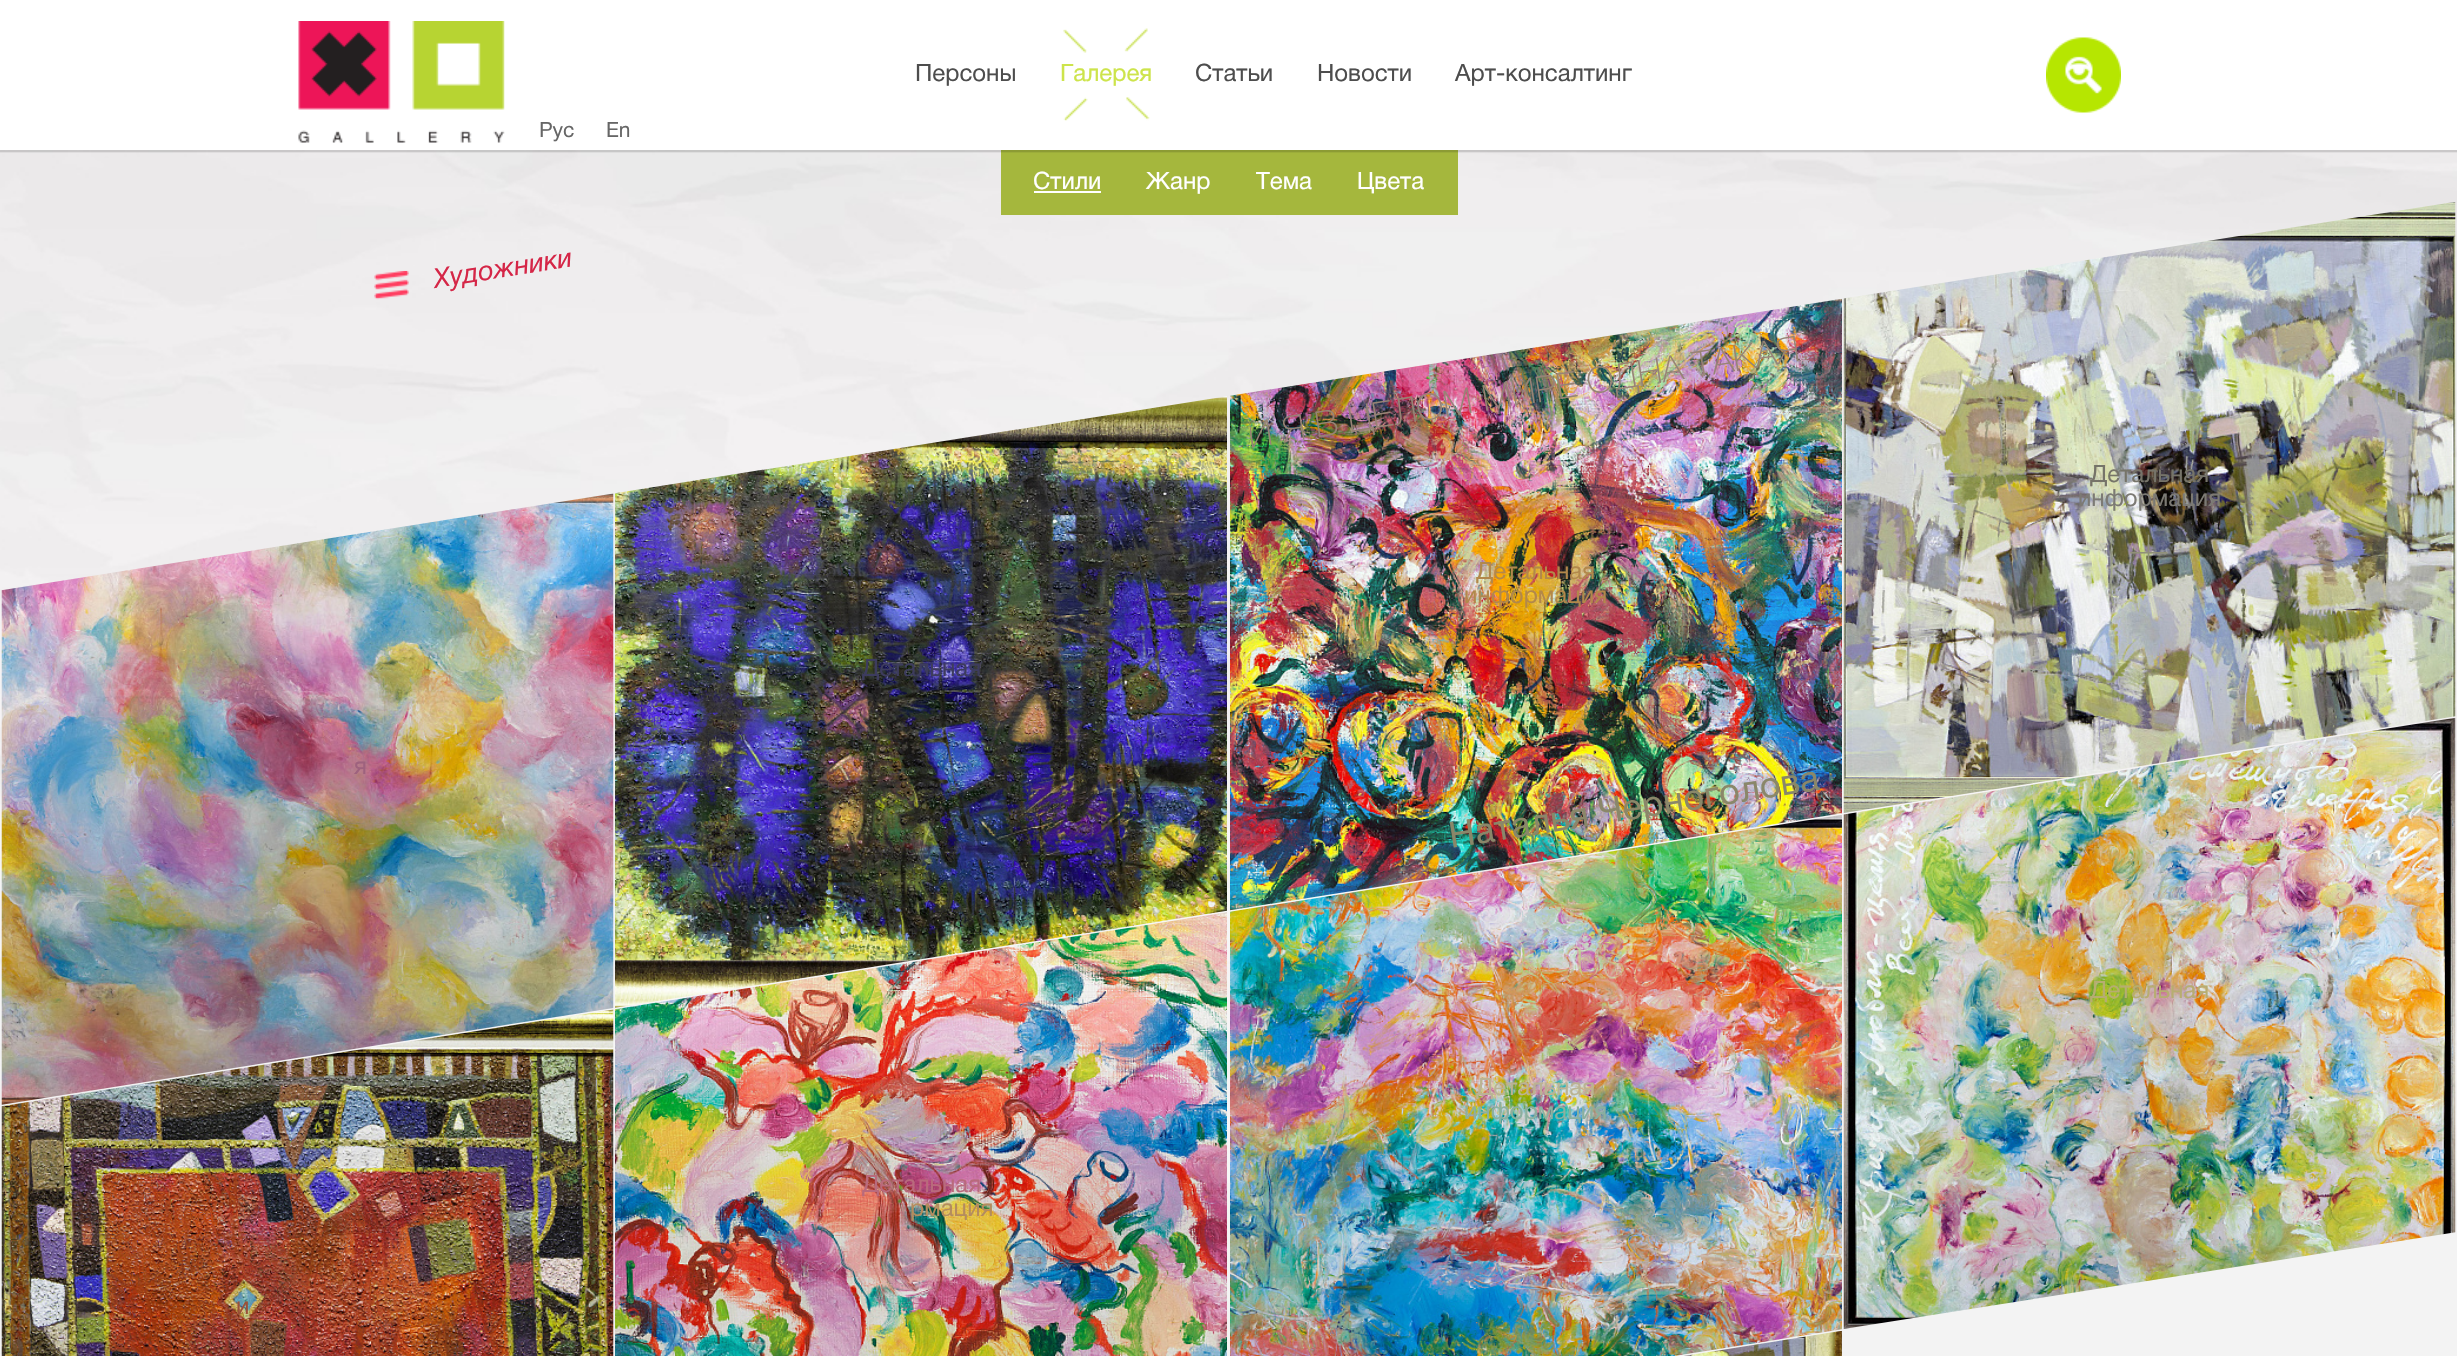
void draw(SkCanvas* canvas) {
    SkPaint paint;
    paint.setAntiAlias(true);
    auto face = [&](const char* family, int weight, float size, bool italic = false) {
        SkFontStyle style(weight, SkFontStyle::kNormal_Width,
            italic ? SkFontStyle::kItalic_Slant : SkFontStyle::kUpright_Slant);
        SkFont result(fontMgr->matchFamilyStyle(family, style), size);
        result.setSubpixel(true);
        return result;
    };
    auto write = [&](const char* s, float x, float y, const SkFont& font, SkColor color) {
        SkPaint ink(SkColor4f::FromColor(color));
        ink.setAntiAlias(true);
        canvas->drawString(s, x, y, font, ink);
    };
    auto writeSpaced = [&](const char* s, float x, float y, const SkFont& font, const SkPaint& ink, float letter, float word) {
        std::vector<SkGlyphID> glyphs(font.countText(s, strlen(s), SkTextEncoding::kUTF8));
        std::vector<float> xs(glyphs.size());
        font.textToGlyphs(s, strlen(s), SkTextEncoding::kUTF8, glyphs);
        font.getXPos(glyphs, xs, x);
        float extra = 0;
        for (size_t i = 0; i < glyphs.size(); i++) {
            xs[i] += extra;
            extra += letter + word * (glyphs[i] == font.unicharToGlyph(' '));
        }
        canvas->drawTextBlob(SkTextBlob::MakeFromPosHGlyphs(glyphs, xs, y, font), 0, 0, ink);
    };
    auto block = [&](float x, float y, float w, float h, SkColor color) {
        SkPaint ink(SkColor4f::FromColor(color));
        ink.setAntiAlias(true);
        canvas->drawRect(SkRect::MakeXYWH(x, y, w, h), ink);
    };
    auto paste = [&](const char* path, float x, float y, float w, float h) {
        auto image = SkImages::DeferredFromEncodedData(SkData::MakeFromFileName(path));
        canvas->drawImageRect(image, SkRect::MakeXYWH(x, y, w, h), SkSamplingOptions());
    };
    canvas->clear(SkColorSetRGB(243, 243, 243));
    paste("pic1.png", 0, 150, 2457, 1033);
    block(1001, 150, 457, 65, SkColorSetRGB(165, 183, 61));
    paint.setColor(SkColorSetARGB(13, 0, 0, 0));
    canvas->drawPath(SkPathBuilder().moveTo(-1, 0).lineTo(-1, 153).lineTo(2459, 153).lineTo(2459, 0).lineTo(2457, 0).lineTo(2457, 150).lineTo(0, 150).lineTo(0, 0).close().detach(), paint);
    paint.setStyle(SkPaint::kStroke_Style);
    paint.setStrokeWidth(2);
    paint.setColor(SkColorSetARGB(26, 0, 0, 0));
    canvas->drawRect(SkRect::MakeXYWH(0, 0, 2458, 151), paint);
    block(0, 0, 2457, 150, SK_ColorWHITE);
    paste("pic2.png", 298, 21, 207, 122);
    auto kFont1 = face("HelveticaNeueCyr", 400, 24);
    write("Персоны", 915, 81, kFont1, SkColorSetRGB(77, 77, 77));
    paste("pic3.png", 1063, 28, 87, 93);
    write("Галерея", 1060, 81, kFont1, SkColorSetRGB(205, 228, 75));
    write("Статьи", 1195, 81, kFont1, SkColorSetRGB(77, 77, 77));
    write("Новости", 1317, 81, kFont1, SkColorSetRGB(77, 77, 77));
    write("Арт-консалтинг", 1455, 81, kFont1, SkColorSetRGB(77, 77, 77));
    paste("pic4.png", 2046, 37, 75, 76);
    auto kFont2 = face("HelveticaNeueCyr", 400, 21);
    write("Рус", 539, 137, kFont2, SkColorSetRGB(102, 102, 102));
    write("En", 606, 137, kFont2, SkColorSetRGB(102, 102, 102));
    write("Стили", 1033, 189, kFont1, SK_ColorWHITE);
    block(1034, 191, 67, 2, SK_ColorWHITE);
    write("Жанр", 1146, 189, kFont1, SK_ColorWHITE);
    write("Тема", 1256, 189, kFont1, SK_ColorWHITE);
    write("Цвета", 1357, 189, kFont1, SK_ColorWHITE);
    paste("pic5.png", 374, 270, 35, 30);
    auto kFont3 = face("HelveticaNeueCyr", 500, 27, true);
    canvas->save();
    canvas->rotate(-9, 435, 288);
    write("Художники", 435, 288, kFont3, SkColorSetRGB(213, 38, 71));
    canvas->restore();
    paste("pic6.png", 1230, 298, 612, 613);
    canvas->save();
    canvas->clipPath(SkPathBuilder().moveTo(1250, 413.5f).lineTo(1820.5f, 323).lineTo(1820.5f, 374.5f).lineTo(1250, 465).close().detach(), true);
    auto kFont4 = face("HelveticaNeueCyr", 100, 36);
    paint.setStyle(SkPaint::kFill_Style);
    paint.setColor(SkColorSetRGB(151, 131, 117));
    canvas->save();
    canvas->rotate(-9, 1250, 448);
    writeSpaced("И Я В ЦЕЛОМ МИРЕ ОДНА ТАКАЯ...", 1250, 448, kFont4, paint, 0.25f, 0);
    canvas->restore();
    canvas->restore();
    write("Детальная", 1476, 579, kFont1, SkColorSetRGB(178, 136, 75));
    write("информация", 1464, 603, kFont1, SkColorSetRGB(178, 136, 75));
    auto kFont5 = face("HelveticaNeueCyr", 200, 72, true);
    write("+", 1514, 668, kFont5, SkColorSetRGB(185, 136, 54));
    auto kFont6 = face("HelveticaNeueCyr", 400, 36);
    paint.setColor(SkColorSetRGB(138, 135, 105));
    canvas->save();
    canvas->rotate(-9, 1451, 848);
    writeSpaced("Наталья Черноголова", 1451, 848, kFont6, paint, 0.25f, 0);
    canvas->restore();
    paste("pic7.png", 1843, 202, 613, 611);
    write("Детальная", 2090, 482, kFont1, SkColorSetRGB(118, 116, 105));
    write("информация", 2078, 506, kFont1, SkColorSetRGB(124, 122, 116));
    write("+", 2128, 571, kFont5, SkColorSetRGB(144, 144, 120));
    paste("pic8.png", 615, 396, 612, 612);
    write("Детальная", 862, 676, kFont1, SkColorSetRGB(61, 60, 94));
    paste("pic9.png", 1, 493, 613, 612);
    write("я", 354, 774, kFont1, SkColorSetRGB(158, 98, 126));
    paste("pic10.png", 1843, 717, 613, 612);
    write("Детальная", 2090, 998, kFont1, SkColorSetRGB(183, 173, 113));
    paste("pic11.png", 1230, 815, 612, 541);
    write("Детальная", 1476, 1095, kFont1, SkColorSetRGB(186, 179, 148));
    write("информация", 1464, 1119, kFont1, SkColorSetRGB(139, 176, 159));
    paste("pic12.png", 615, 912, 612, 444);
    write("Детальная", 862, 1192, kFont1, SkColorSetRGB(185, 106, 124));
    write("рмация", 910, 1216, kFont1, SkColorSetRGB(180, 140, 94));
    paste("pic13.png", 1, 1009, 613, 347);
    write("и", 236, 1314, kFont1, SkColorSetRGB(154, 80, 57));
    paste("pic14.png", 1684, 1330, 158, 26);
}
